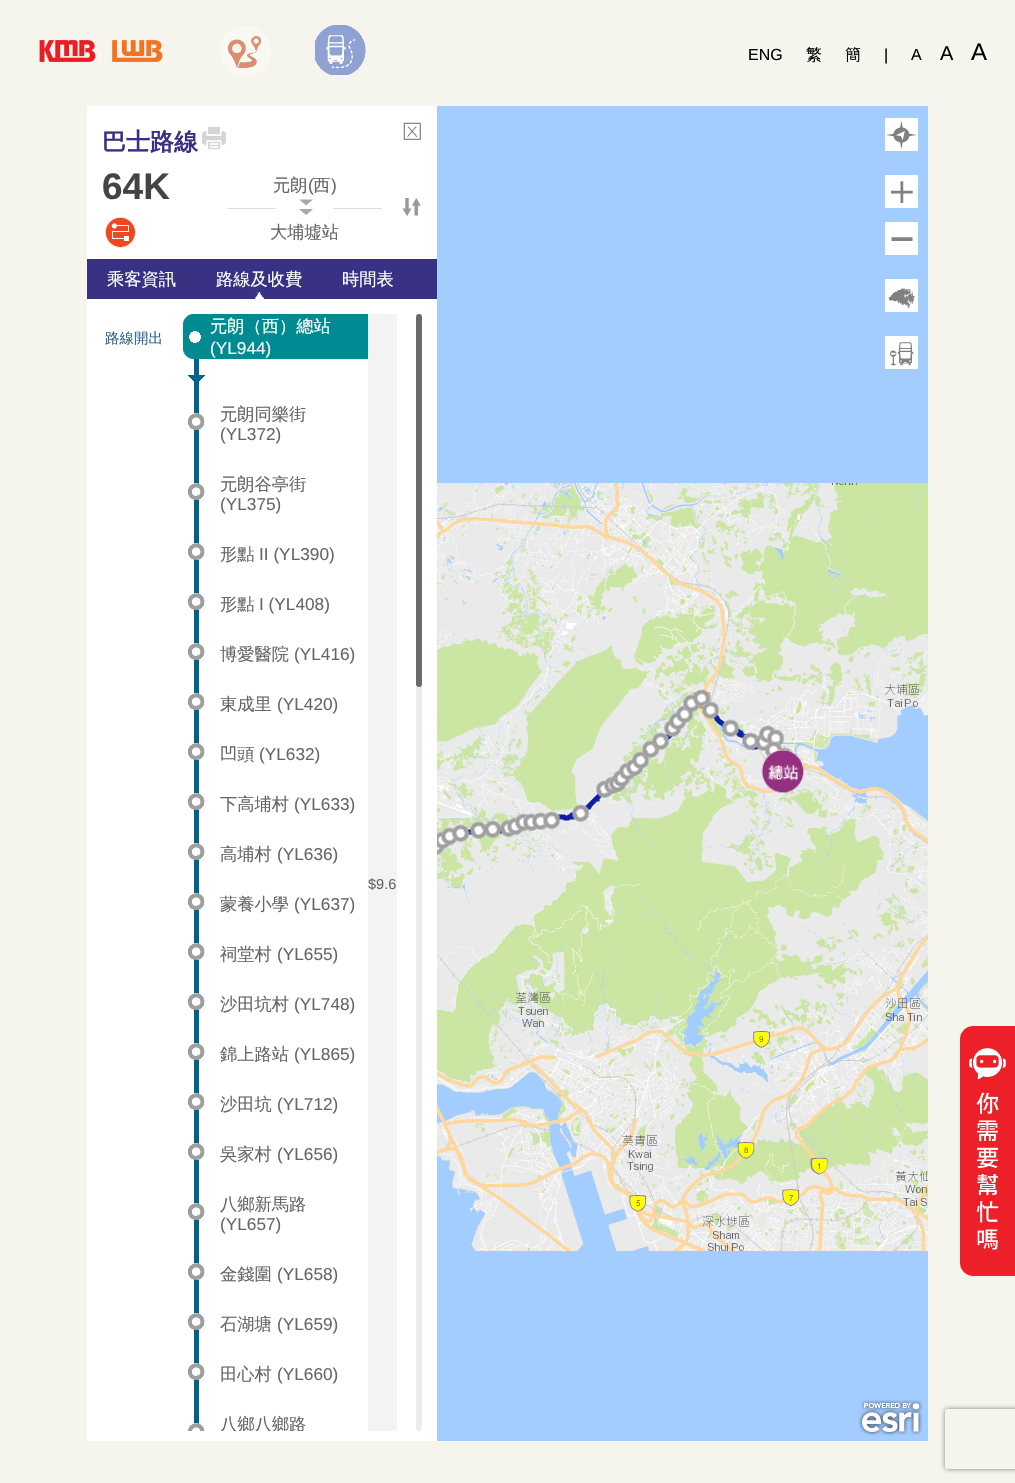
void draw(SkCanvas* canvas) {
    SkPaint paint;
    paint.setAntiAlias(true);
    auto face = [&](const char* family, int weight, float size, bool italic = false) {
        SkFontStyle style(weight, SkFontStyle::kNormal_Width,
            italic ? SkFontStyle::kItalic_Slant : SkFontStyle::kUpright_Slant);
        SkFont result(fontMgr->matchFamilyStyle(family, style), size);
        result.setSubpixel(true);
        return result;
    };
    auto write = [&](const char* s, float x, float y, const SkFont& font, SkColor color) {
        SkPaint ink(SkColor4f::FromColor(color));
        ink.setAntiAlias(true);
        canvas->drawString(s, x, y, font, ink);
    };
    auto block = [&](float x, float y, float w, float h, SkColor color) {
        SkPaint ink(SkColor4f::FromColor(color));
        ink.setAntiAlias(true);
        canvas->drawRect(SkRect::MakeXYWH(x, y, w, h), ink);
    };
    auto card = [&](float x, float y, float w, float h, float radius, SkColor color) {
        SkPaint ink(SkColor4f::FromColor(color));
        ink.setAntiAlias(true);
        canvas->drawRoundRect(SkRect::MakeXYWH(x, y, w, h), radius, radius, ink);
    };
    auto paste = [&](const char* path, float x, float y, float w, float h) {
        auto image = SkImages::DeferredFromEncodedData(SkData::MakeFromFileName(path));
        canvas->drawImageRect(image, SkRect::MakeXYWH(x, y, w, h), SkSamplingOptions());
    };
    canvas->clear(SkColorSetRGB(245, 245, 238));
    paste("pic1.png", 39, 40, 124, 22);
    paste("pic2.png", 218, 26, 54, 51);
    paste("pic3.png", 315, 25, 51, 50);
    auto kFont1 = face("Liberation Sans", 400, 16);
    write("ENG", 748, 60, kFont1, SK_ColorBLACK);
    auto kFont2 = face("WenQuanYi Zen Hei", 500, 16);
    write("繁", 806, 60, kFont2, SK_ColorBLACK);
    write("簡", 845, 60, kFont2, SK_ColorBLACK);
    write("|", 884, 60, kFont1, SK_ColorBLACK);
    write("A", 911, 60, kFont1, SK_ColorBLACK);
    auto kFont3 = face("Liberation Sans", 400, 20);
    write("A", 940, 60, kFont3, SK_ColorBLACK);
    auto kFont4 = face("Liberation Sans", 400, 24);
    write("A", 971, 60, kFont4, SK_ColorBLACK);
    block(437, 106, 491, 1335, SkColorSetRGB(163, 204, 255));
    paste("pic4.png", 437, 483, 79, 256);
    paste("pic5.png", 516, 483, 256, 256);
    paste("pic6.png", 772, 483, 156, 256);
    paste("pic7.png", 437, 739, 79, 256);
    paste("pic8.png", 516, 739, 256, 256);
    paste("pic9.png", 772, 739, 156, 256);
    paste("pic10.png", 437, 995, 79, 256);
    paste("pic11.png", 516, 995, 256, 256);
    paste("pic12.png", 772, 995, 156, 256);
    paste("pic13.png", 437, 689, 367, 166);
    paste("pic14.png", 858, 1400, 65, 36);
    block(87, 106, 350, 1335, SK_ColorWHITE);
    auto kFont5 = face("WenQuanYi Zen Hei", 700, 24);
    write("巴士路線", 102, 150, kFont5, SkColorSetRGB(57, 50, 132));
    paste("pic15.png", 202, 126, 24, 24);
    paste("pic16.png", 403, 122, 18, 18);
    auto kFont6 = face("Liberation Sans", 700, 37);
    write("64K", 102, 199, kFont6, SkColorSetRGB(68, 68, 68));
    auto kFont7 = face("WenQuanYi Zen Hei", 500, 17.25f);
    write("元朗", 273, 191, kFont7, SkColorSetRGB(102, 102, 102));
    auto kFont8 = face("Liberation Sans", 400, 17.25f);
    write("(", 308, 191, kFont8, SkColorSetRGB(102, 102, 102));
    write("西", 313, 191, kFont7, SkColorSetRGB(102, 102, 102));
    write(")", 331, 191, kFont8, SkColorSetRGB(102, 102, 102));
    block(227, 208, 49, 1, SkColorSetRGB(221, 221, 221));
    paste("pic17.png", 299, 199, 14, 16);
    block(333, 208, 49, 1, SkColorSetRGB(221, 221, 221));
    write("大埔墟站", 270, 238, kFont7, SkColorSetRGB(102, 102, 102));
    paste("pic18.png", 402, 198, 19, 18);
    paste("pic19.png", 105, 217, 31, 31);
    block(87, 259, 350, 40, SkColorSetRGB(57, 50, 132));
    write("乘客資訊", 107, 285, kFont7, SK_ColorWHITE);
    paste("pic20.png", 255, 292, 9, 7);
    write("路線及收費", 216, 285, kFont7, SK_ColorWHITE);
    write("時間表", 342, 285, kFont7, SK_ColorWHITE);
    auto kFont9 = face("WenQuanYi Zen Hei", 500, 14.5f);
    write("路線開出", 105, 343, kFont9, SkColorSetRGB(42, 98, 140));
    paint.setColor(SkColorSetRGB(0, 138, 146));
    canvas->drawPath(SkPathBuilder().moveTo(193, 314.5f).lineTo(209.5f, 314.5f).lineTo(209.5f, 358.5f).lineTo(193, 358.5f).cubicTo(188, 358.5f, 183.5f, 354, 183.5f, 349).lineTo(183.5f, 324).cubicTo(183.5f, 319, 188, 314.5f, 193, 314.5f).close().detach(), paint);
    paint.setStyle(SkPaint::kStroke_Style);
    paint.setStrokeWidth(1);
    canvas->drawPath(SkPathBuilder().moveTo(193, 314.5f).lineTo(209.5f, 314.5f).lineTo(209.5f, 358.5f).lineTo(193, 358.5f).cubicTo(188, 358.5f, 183.5f, 354, 183.5f, 349).lineTo(183.5f, 324).cubicTo(183.5f, 319, 188, 314.5f, 193, 314.5f).close().detach(), paint);
    paste("pic21.png", 189, 331, 12, 12);
    block(210, 314, 158, 45, SkColorSetRGB(0, 138, 146));
    write("元朗（西）總站", 210, 332, kFont7, SK_ColorWHITE);
    write("(YL944)", 210, 354, kFont8, SK_ColorWHITE);
    block(368, 314, 29, 1117, SkColorSetRGB(243, 243, 243));
    auto kFont10 = face("Liberation Sans", 400, 14.5f);
    write("$9.6", 368, 889, kFont10, SkColorSetRGB(102, 102, 102));
    block(194, 359, 5, 1072, SkColorSetRGB(0, 98, 135));
    paste("pic22.png", 188, 375, 17, 9);
    paste("pic23.png", 188, 413, 17, 17);
    write("元朗同樂街", 220, 420, kFont7, SkColorSetRGB(102, 102, 102));
    write("(YL372)", 220, 440, kFont8, SkColorSetRGB(102, 102, 102));
    paste("pic23.png", 188, 483, 17, 17);
    write("元朗谷亭街", 220, 490, kFont7, SkColorSetRGB(102, 102, 102));
    write("(YL375)", 220, 510, kFont8, SkColorSetRGB(102, 102, 102));
    paste("pic23.png", 188, 543, 17, 17);
    write("形點", 220, 560, kFont7, SkColorSetRGB(102, 102, 102));
    write("II (YL390)", 259, 560, kFont8, SkColorSetRGB(102, 102, 102));
    paste("pic23.png", 188, 593, 17, 17);
    write("形點", 220, 610, kFont7, SkColorSetRGB(102, 102, 102));
    write("I (YL408)", 259, 610, kFont8, SkColorSetRGB(102, 102, 102));
    paste("pic23.png", 188, 643, 17, 17);
    write("博愛醫院", 220, 660, kFont7, SkColorSetRGB(102, 102, 102));
    write("(YL416)", 294, 660, kFont8, SkColorSetRGB(102, 102, 102));
    paste("pic23.png", 188, 693, 17, 17);
    write("東成里", 220, 710, kFont7, SkColorSetRGB(102, 102, 102));
    write("(YL420)", 277, 710, kFont8, SkColorSetRGB(102, 102, 102));
    paste("pic23.png", 188, 743, 17, 17);
    write("凹頭", 220, 760, kFont7, SkColorSetRGB(102, 102, 102));
    write("(YL632)", 259, 760, kFont8, SkColorSetRGB(102, 102, 102));
    paste("pic23.png", 188, 793, 17, 17);
    write("下高埔村", 220, 810, kFont7, SkColorSetRGB(102, 102, 102));
    write("(YL633)", 294, 810, kFont8, SkColorSetRGB(102, 102, 102));
    paste("pic23.png", 188, 843, 17, 17);
    write("高埔村", 220, 860, kFont7, SkColorSetRGB(102, 102, 102));
    write("(YL636)", 277, 860, kFont8, SkColorSetRGB(102, 102, 102));
    paste("pic23.png", 188, 893, 17, 17);
    write("蒙養小學", 220, 910, kFont7, SkColorSetRGB(102, 102, 102));
    write("(YL637)", 294, 910, kFont8, SkColorSetRGB(102, 102, 102));
    paste("pic23.png", 188, 943, 17, 17);
    write("祠堂村", 220, 960, kFont7, SkColorSetRGB(102, 102, 102));
    write("(YL655)", 277, 960, kFont8, SkColorSetRGB(102, 102, 102));
    paste("pic23.png", 188, 993, 17, 17);
    write("沙田坑村", 220, 1010, kFont7, SkColorSetRGB(102, 102, 102));
    write("(YL748)", 294, 1010, kFont8, SkColorSetRGB(102, 102, 102));
    paste("pic23.png", 188, 1043, 17, 17);
    write("錦上路站", 220, 1060, kFont7, SkColorSetRGB(102, 102, 102));
    write("(YL865)", 294, 1060, kFont8, SkColorSetRGB(102, 102, 102));
    paste("pic23.png", 188, 1093, 17, 17);
    write("沙田坑", 220, 1110, kFont7, SkColorSetRGB(102, 102, 102));
    write("(YL712)", 277, 1110, kFont8, SkColorSetRGB(102, 102, 102));
    paste("pic23.png", 188, 1143, 17, 17);
    write("吳家村", 220, 1160, kFont7, SkColorSetRGB(102, 102, 102));
    write("(YL656)", 277, 1160, kFont8, SkColorSetRGB(102, 102, 102));
    paste("pic23.png", 188, 1203, 17, 17);
    write("八鄉新馬路", 220, 1210, kFont7, SkColorSetRGB(102, 102, 102));
    write("(YL657)", 220, 1230, kFont8, SkColorSetRGB(102, 102, 102));
    paste("pic23.png", 188, 1263, 17, 17);
    write("金錢圍", 220, 1280, kFont7, SkColorSetRGB(102, 102, 102));
    write("(YL658)", 277, 1280, kFont8, SkColorSetRGB(102, 102, 102));
    paste("pic23.png", 188, 1313, 17, 17);
    write("石湖塘", 220, 1330, kFont7, SkColorSetRGB(102, 102, 102));
    write("(YL659)", 277, 1330, kFont8, SkColorSetRGB(102, 102, 102));
    paste("pic23.png", 188, 1363, 17, 17);
    write("田心村", 220, 1380, kFont7, SkColorSetRGB(102, 102, 102));
    write("(YL660)", 277, 1380, kFont8, SkColorSetRGB(102, 102, 102));
    paste("pic24.png", 188, 1423, 17, 8);
    canvas->save();
    canvas->clipRect(SkRect::MakeXYWH(97, 314, 300, 1117));
    write("八鄉八鄉路", 220, 1430, kFont7, SkColorSetRGB(102, 102, 102));
    canvas->restore();
    card(416, 314, 6, 1117, 3, SkColorSetRGB(236, 236, 236));
    card(416, 314, 6, 373, 3, SkColorSetARGB(191, 64, 64, 64));
    paste("pic25.png", 885, 118, 33, 33);
    paste("pic26.png", 885, 175, 33, 33);
    paste("pic27.png", 885, 222, 33, 33);
    paste("pic28.png", 885, 279, 33, 33);
    paste("pic29.png", 885, 336, 33, 33);
    paste("pic30.png", 960, 1026, 55, 250);
    canvas->save();
    canvas->clipPath(SkPathBuilder(SkPathFillType::kEvenOdd).moveTo(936, 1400).lineTo(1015, 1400).lineTo(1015, 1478).lineTo(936, 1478).close().moveTo(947, 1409).lineTo(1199, 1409).cubicTo(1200, 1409, 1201, 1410, 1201, 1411).lineTo(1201, 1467).cubicTo(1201, 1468, 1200, 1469, 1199, 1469).lineTo(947, 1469).cubicTo(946, 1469, 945, 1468, 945, 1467).lineTo(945, 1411).cubicTo(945, 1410, 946, 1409, 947, 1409).close().detach(), true);
    paint.setStyle(SkPaint::kFill_Style);
    paint.setColor(SkColorSetRGB(128, 128, 128));
    paint.setMaskFilter(SkMaskFilter::MakeBlur(kNormal_SkBlurStyle, 2.5f));
    canvas->drawRoundRect(SkRect::MakeXYWH(945, 1409, 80, 60), 2, 2, paint);
    paint.setMaskFilter(nullptr);
    canvas->restore();
}
